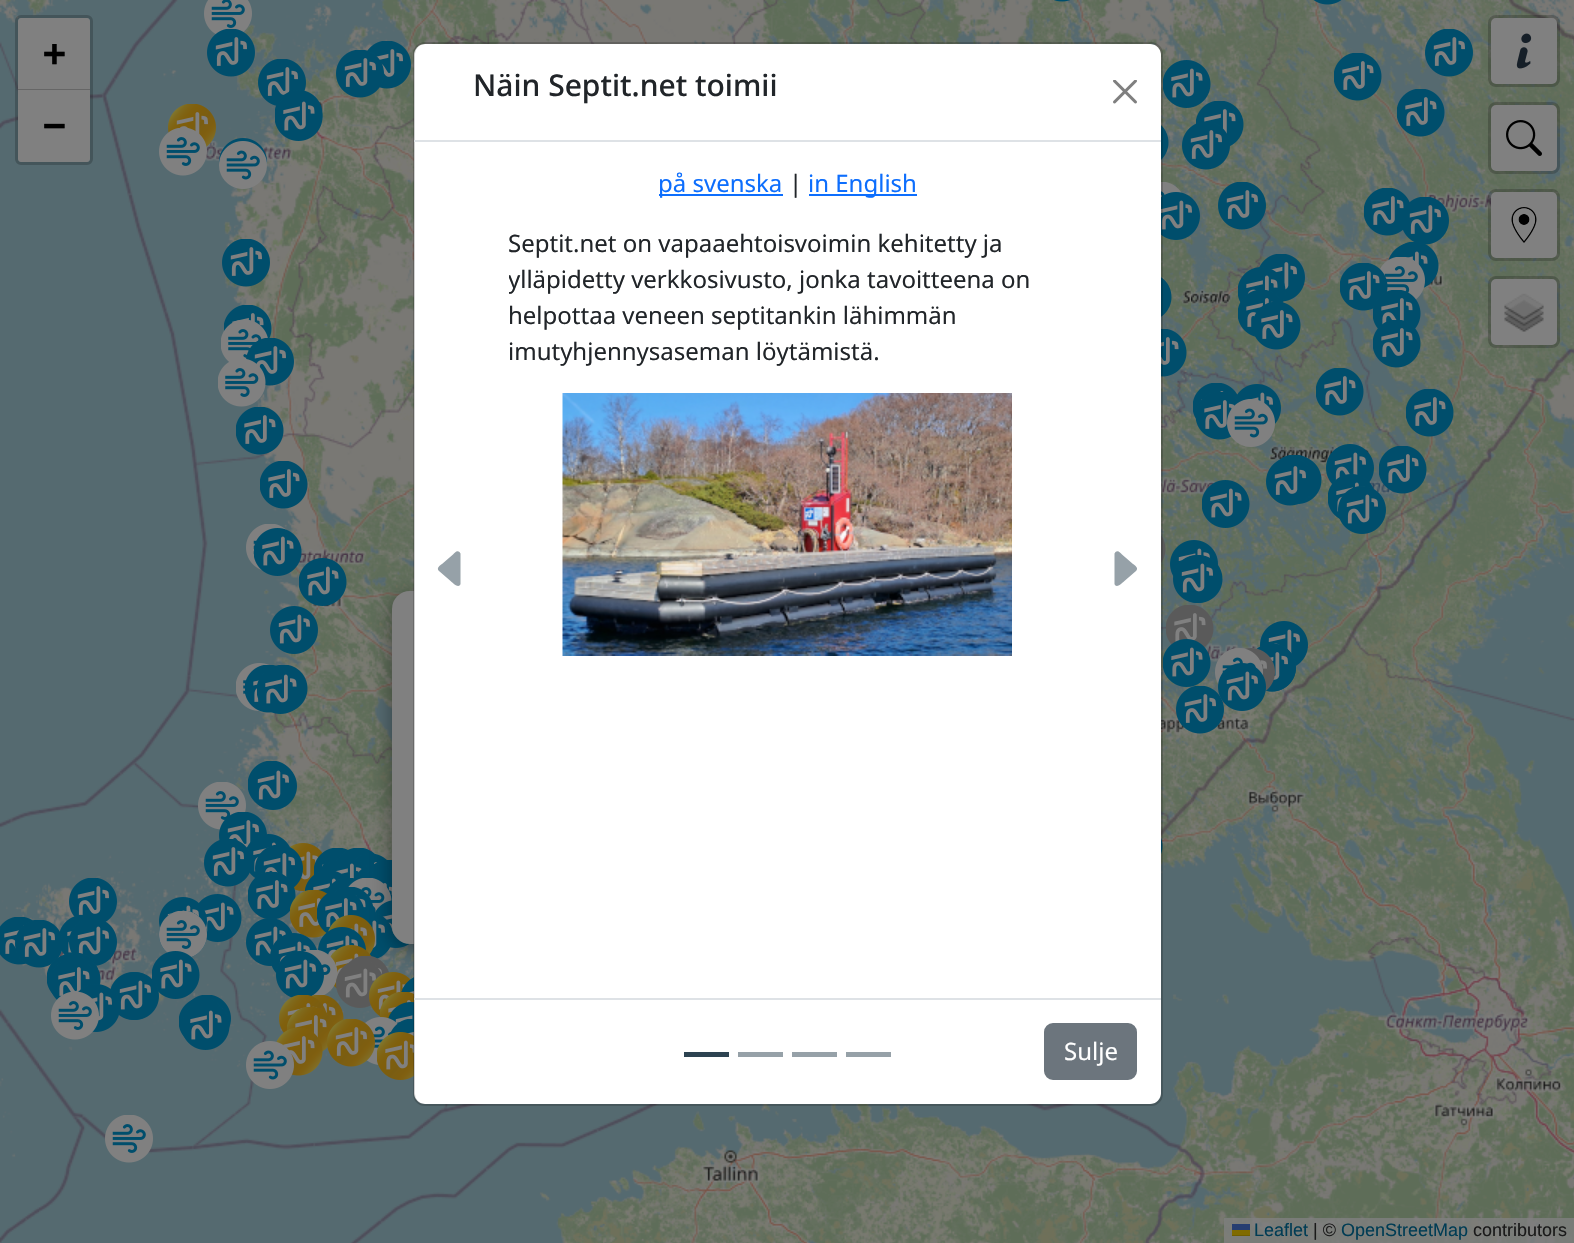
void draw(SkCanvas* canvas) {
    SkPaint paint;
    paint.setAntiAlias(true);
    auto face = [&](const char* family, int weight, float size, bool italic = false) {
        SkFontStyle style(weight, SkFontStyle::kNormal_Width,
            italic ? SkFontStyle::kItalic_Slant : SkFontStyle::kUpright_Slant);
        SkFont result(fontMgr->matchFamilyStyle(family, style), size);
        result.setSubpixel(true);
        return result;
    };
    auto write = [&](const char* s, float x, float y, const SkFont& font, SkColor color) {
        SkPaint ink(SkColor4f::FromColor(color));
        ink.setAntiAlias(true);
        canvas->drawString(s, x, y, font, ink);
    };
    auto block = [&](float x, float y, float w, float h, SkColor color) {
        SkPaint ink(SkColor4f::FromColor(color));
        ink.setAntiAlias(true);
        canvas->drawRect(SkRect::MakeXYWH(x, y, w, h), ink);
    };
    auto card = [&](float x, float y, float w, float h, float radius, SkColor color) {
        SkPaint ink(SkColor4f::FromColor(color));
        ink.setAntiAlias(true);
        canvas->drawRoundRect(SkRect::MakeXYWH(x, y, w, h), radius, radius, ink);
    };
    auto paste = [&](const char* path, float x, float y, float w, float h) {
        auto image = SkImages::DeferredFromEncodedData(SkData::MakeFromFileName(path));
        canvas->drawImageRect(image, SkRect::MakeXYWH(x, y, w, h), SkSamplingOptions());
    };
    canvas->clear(SK_ColorWHITE);
    paste("pic1.png", 0, 0, 39, 171);
    paste("pic2.png", 39, 0, 384, 171);
    paste("pic3.png", 423, 0, 384, 45);
    paste("pic4.png", 807, 0, 384, 171);
    paste("pic5.png", 1191, 0, 383, 171);
    block(0, 171, 39, 384, SkColorSetRGB(85, 106, 112));
    paste("pic6.png", 39, 171, 375, 384);
    paste("pic7.png", 1161, 171, 30, 384);
    paste("pic8.png", 1191, 171, 383, 384);
    paste("pic9.png", 0, 555, 39, 372);
    paste("pic10.png", 39, 555, 375, 384);
    paste("pic11.png", 1161, 555, 30, 384);
    paste("pic12.png", 1191, 555, 383, 384);
    paste("pic13.png", 0, 954, 39, 289);
    paste("pic14.png", 39, 939, 384, 304);
    paste("pic15.png", 423, 1103, 384, 140);
    paste("pic16.png", 807, 939, 384, 304);
    paste("pic17.png", 1191, 939, 383, 304);
    paste("pic18.png", 204, 0, 48, 35);
    paste("pic19.png", 1054, 0, 16, 2);
    paste("pic20.png", 1313, 0, 29, 5);
    paste("pic21.png", 207, 29, 48, 48);
    paste("pic22.png", 258, 59, 48, 47);
    paste("pic24.png", 367, 41, 44, 48);
    paste("pic23.png", 336, 50, 48, 48);
    paste("pic25.png", 1163, 60, 48, 48);
    paste("pic26.png", 1334, 53, 48, 48);
    paste("pic27.png", 1425, 29, 48, 48);
    paste("pic28.png", 275, 90, 48, 29);
    paste("pic29.png", 1397, 89, 48, 48);
    paste("pic30.png", 168, 104, 48, 43);
    paste("pic31.png", 275, 98, 48, 43);
    paste("pic32.png", 1196, 101, 48, 46);
    paste("pic33.png", 159, 128, 48, 48);
    paste("pic34.png", 219, 138, 48, 31);
    paste("pic35.png", 1161, 125, 8, 35);
    paste("pic36.png", 1182, 123, 48, 47);
    paste("pic37.png", 219, 141, 48, 48);
    paste("pic38.png", 1161, 182, 21, 16);
    paste("pic39.png", 1218, 182, 48, 48);
    paste("pic40.png", 1364, 188, 46, 48);
    paste("pic41.png", 1161, 192, 39, 48);
    paste("pic42.png", 1403, 197, 46, 48);
    paste("pic43.png", 222, 239, 48, 48);
    paste("pic44.png", 1398, 242, 41, 46);
    paste("pic45.png", 1259, 254, 46, 48);
    paste("pic46.png", 1388, 243, 43, 45);
    paste("pic47.png", 1161, 277, 11, 40);
    paste("pic48.png", 1238, 267, 48, 36);
    paste("pic50.png", 1380, 257, 45, 43);
    paste("pic49.png", 1340, 263, 48, 48);
    paste("pic51.png", 1161, 282, 3, 33);
    paste("pic52.png", 1238, 290, 45, 47);
    paste("pic53.png", 1373, 290, 48, 39);
    paste("pic54.png", 224, 305, 48, 33);
    paste("pic55.png", 1254, 302, 47, 48);
    paste("pic56.png", 221, 320, 47, 42);
    paste("pic57.png", 246, 338, 48, 48);
    paste("pic58.png", 1161, 329, 26, 48);
    paste("pic59.png", 1373, 320, 48, 48);
    paste("pic60.png", 218, 359, 48, 48);
    paste("pic61.png", 1193, 383, 45, 38);
    paste("pic62.png", 1236, 384, 45, 41);
    paste("pic63.png", 1316, 368, 48, 48);
    paste("pic64.png", 1406, 389, 48, 48);
    paste("pic65.png", 236, 407, 48, 48);
    paste("pic66.png", 1196, 392, 44, 48);
    paste("pic67.png", 1227, 399, 48, 48);
    paste("pic68.png", 1277, 455, 34, 7);
    paste("pic69.png", 1326, 444, 48, 40);
    paste("pic70.png", 1379, 446, 48, 48);
    paste("pic71.png", 1288, 456, 34, 48);
    paste("pic72.png", 1277, 458, 37, 46);
    paste("pic73.png", 260, 461, 48, 48);
    paste("pic74.png", 1202, 480, 48, 48);
    paste("pic75.png", 1266, 459, 43, 47);
    paste("pic76.png", 1328, 474, 46, 46);
    paste("pic77.png", 1338, 486, 48, 48);
    paste("pic78.png", 246, 524, 42, 47);
    paste("pic79.png", 254, 528, 48, 48);
    paste("pic80.png", 1161, 535, 5, 28);
    paste("pic81.png", 1170, 540, 48, 37);
    paste("pic84.png", 1179, 555, 44, 48);
    paste("pic82.png", 1173, 555, 42, 48);
    paste("pic83.png", 299, 558, 48, 48);
    paste("pic85.png", 270, 606, 48, 48);
    paste("pic86.png", 1166, 605, 48, 43);
    paste("pic87.png", 1260, 621, 48, 46);
    paste("pic88.png", 1163, 639, 48, 48);
    paste("pic89.png", 1256, 644, 40, 48);
    paste("pic91.png", 1256, 644, 40, 48);
    paste("pic93.png", 1244, 648, 31, 44);
    paste("pic90.png", 1215, 648, 48, 37);
    paste("pic92.png", 236, 663, 33, 48);
    paste("pic95.png", 275, 665, 33, 48);
    paste("pic94.png", 245, 665, 42, 48);
    paste("pic96.png", 1218, 663, 48, 48);
    paste("pic97.png", 257, 673, 43, 41);
    paste("pic98.png", 1176, 686, 48, 48);
    paste("pic99.png", 248, 761, 47, 47);
    paste("pic100.png", 198, 782, 48, 48);
    paste("pic101.png", 251, 764, 46, 46);
    paste("pic102.png", 219, 812, 48, 36);
    paste("pic104.png", 246, 834, 44, 44);
    paste("pic103.png", 204, 839, 46, 48);
    paste("pic105.png", 289, 843, 34, 48);
    paste("pic106.png", 1161, 838, 2, 16);
    paste("pic107.png", 255, 845, 48, 43);
    paste("pic108.png", 314, 848, 34, 27);
    paste("pic109.png", 337, 848, 39, 12);
    paste("pic110.png", 335, 856, 25, 5);
    paste("pic112.png", 340, 859, 16, 2);
    paste("pic111.png", 353, 854, 34, 13);
    paste("pic113.png", 373, 860, 19, 5);
    paste("pic114.png", 322, 861, 40, 10);
    paste("pic115.png", 328, 862, 39, 17);
    paste("pic116.png", 374, 863, 18, 6);
    paste("pic117.png", 354, 864, 37, 16);
    paste("pic118.png", 248, 872, 48, 47);
    paste("pic119.png", 305, 871, 42, 22);
    paste("pic120.png", 363, 869, 29, 9);
    paste("pic121.png", 370, 872, 22, 6);
    paste("pic122.png", 390, 876, 2, 2);
    paste("pic123.png", 69, 878, 48, 44);
    paste("pic124.png", 325, 878, 34, 16);
    paste("pic126.png", 344, 880, 13, 8);
    paste("pic127.png", 372, 878, 20, 23);
    paste("pic125.png", 348, 878, 44, 35);
    paste("pic128.png", 290, 890, 38, 48);
    paste("pic129.png", 333, 887, 41, 26);
    paste("pic131.png", 198, 894, 44, 48);
    paste("pic130.png", 159, 897, 48, 31);
    paste("pic132.png", 317, 893, 47, 41);
    paste("pic133.png", 374, 900, 36, 48);
    paste("pic134.png", 159, 911, 48, 46);
    paste("pic135.png", 159, 911, 48, 46);
    paste("pic136.png", 356, 913, 37, 46);
    paste("pic137.png", 0, 917, 34, 48);
    paste("pic138.png", 59, 916, 40, 39);
    paste("pic139.png", 246, 918, 47, 48);
    paste("pic140.png", 327, 915, 48, 40);
    paste("pic141.png", 15, 920, 47, 48);
    paste("pic142.png", 69, 921, 48, 45);
    paste("pic143.png", 270, 933, 47, 41);
    paste("pic144.png", 318, 927, 48, 30);
    paste("pic145.png", 152, 951, 48, 48);
    paste("pic147.png", 330, 945, 42, 44);
    paste("pic146.png", 303, 950, 35, 47);
    paste("pic148.png", 62, 953, 37, 19);
    paste("pic149.png", 276, 951, 48, 47);
    paste("pic150.png", 47, 954, 42, 43);
    paste("pic151.png", 347, 956, 42, 19);
    paste("pic152.png", 55, 962, 44, 10);
    paste("pic153.png", 59, 962, 42, 23);
    paste("pic154.png", 336, 962, 46, 46);
    paste("pic155.png", 51, 964, 43, 36);
    paste("pic156.png", 110, 972, 43, 48);
    paste("pic157.png", 118, 972, 41, 48);
    paste("pic158.png", 369, 972, 42, 44);
    paste("pic159.png", 401, 977, 13, 15);
    paste("pic160.png", 78, 984, 41, 48);
    paste("pic161.png", 401, 977, 13, 17);
    paste("pic162.png", 51, 992, 48, 48);
    paste("pic163.png", 188, 995, 43, 33);
    paste("pic165.png", 311, 995, 33, 31);
    paste("pic164.png", 279, 995, 48, 38);
    paste("pic166.png", 380, 992, 34, 27);
    paste("pic167.png", 179, 999, 44, 40);
    paste("pic168.png", 388, 1002, 26, 22);
    paste("pic169.png", 183, 1006, 47, 44);
    paste("pic170.png", 287, 1007, 47, 45);
    paste("pic172.png", 365, 1017, 33, 48);
    paste("pic171.png", 327, 1019, 48, 48);
    paste("pic173.png", 389, 1019, 25, 18);
    paste("pic175.png", 276, 1028, 47, 48);
    paste("pic174.png", 246, 1041, 48, 48);
    paste("pic176.png", 377, 1032, 37, 48);
    paste("pic177.png", 105, 1115, 48, 48);
    paint.setColor(SkColorSetARGB(102, 0, 0, 0));
    paint.setMaskFilter(SkMaskFilter::MakeBlur(kNormal_SkBlurStyle, 10.5f));
    canvas->drawRoundRect(SkRect::MakeXYWH(392, 596, 715, 352), 18, 18, paint);
    paint.setMaskFilter(nullptr);
    card(392, 591, 715, 353, 18, SkColorSetRGB(128, 128, 128));
    paint.setStyle(SkPaint::kStroke_Style);
    paint.setStrokeWidth(3);
    paint.setColor(SkColorSetARGB(51, 0, 0, 0));
    canvas->drawRoundRect(SkRect::MakeXYWH(16.5f, 16.5f, 75, 147), 4.5f, 4.5f, paint);
    paint.setStyle(SkPaint::kFill_Style);
    paint.setColor(SkColorSetRGB(128, 128, 128));
    canvas->drawPath(SkPathBuilder().moveTo(21, 18).lineTo(87, 18).cubicTo(88.5f, 18, 90, 19.5f, 90, 21).lineTo(90, 90).lineTo(18, 90).lineTo(18, 21).cubicTo(18, 19.5f, 19.5f, 18, 21, 18).close().detach(), paint);
    block(18, 89, 72, 1, SkColorSetRGB(102, 102, 102));
    auto kFont1 = face("DejaVu Sans Mono", 700, 38);
    write("+", 43, 66, kFont1, SK_ColorBLACK);
    canvas->drawPath(SkPathBuilder().moveTo(18, 90).lineTo(90, 90).lineTo(90, 159).cubicTo(90, 160.5f, 88.5f, 162, 87, 162).lineTo(21, 162).cubicTo(19.5f, 162, 18, 160.5f, 18, 159).close().detach(), paint);
    write("−", 43, 138, kFont1, SK_ColorBLACK);
    card(1491, 18, 66, 66, 5, SkColorSetRGB(128, 128, 128));
    paint.setStyle(SkPaint::kStroke_Style);
    paint.setColor(SkColorSetARGB(51, 0, 0, 0));
    canvas->drawRoundRect(SkRect::MakeXYWH(1489.5f, 16.5f, 69, 69), 6.5f, 6.5f, paint);
    paste("pic178.png", 1516, 33, 16, 36);
    card(1491, 105, 66, 66, 5, SkColorSetRGB(128, 128, 128));
    canvas->drawRoundRect(SkRect::MakeXYWH(1489.5f, 103.5f, 69, 69), 6.5f, 6.5f, paint);
    paste("pic179.png", 1506, 120, 36, 36);
    card(1491, 192, 66, 66, 5, SkColorSetRGB(128, 128, 128));
    canvas->drawRoundRect(SkRect::MakeXYWH(1489.5f, 190.5f, 69, 69), 6.5f, 6.5f, paint);
    paste("pic180.png", 1511, 207, 26, 36);
    card(1491, 279, 66, 66, 5, SkColorSetRGB(128, 128, 128));
    canvas->drawRoundRect(SkRect::MakeXYWH(1489.5f, 277.5f, 69, 69), 6.5f, 6.5f, paint);
    paste("pic181.png", 1504, 293, 40, 39);
    block(1224, 1218, 350, 25, SkColorSetARGB(204, 128, 128, 128));
    auto kFont2 = face("Liberation Sans", 400, 18);
    write("Leaflet", 1254, 1236, kFont2, SkColorSetRGB(0, 60, 84));
    block(1232, 1224, 18, 6, SkColorSetRGB(38, 62, 113));
    block(1232, 1230, 18, 5, SkColorSetRGB(128, 107, 0));
    block(1232, 1235, 18, 1, SkColorSetRGB(112, 94, 0));
    write("| ©", 1313, 1236, kFont2, SkColorSetRGB(26, 26, 26));
    write("OpenStreetMap", 1341, 1236, kFont2, SkColorSetRGB(0, 60, 84));
    write("contributors", 1473, 1236, kFont2, SkColorSetRGB(26, 26, 26));
    card(414, 44, 747, 1060, 11, SK_ColorWHITE);
    paint.setStrokeWidth(2);
    paint.setColor(SkColorSetARGB(46, 0, 0, 0));
    canvas->drawRoundRect(SkRect::MakeXYWH(414, 43, 748, 1062), 11, 11, paint);
    block(414, 140, 747, 2, SkColorSetRGB(222, 226, 230));
    auto kFont3 = face("Noto Sans", 500, 30);
    write("Näin Septit.net toimii", 473, 96, kFont3, SkColorSetRGB(33, 37, 41));
    paste("pic182.png", 1113, 80, 24, 24);
    block(659, 194, 124, 2, SkColorSetRGB(13, 110, 253));
    auto kFont4 = face("Noto Sans", 400, 24);
    write("på svenska", 658, 192, kFont4, SkColorSetRGB(13, 110, 253));
    write("|", 789, 192, kFont4, SkColorSetRGB(33, 37, 41));
    block(809, 194, 108, 2, SkColorSetRGB(13, 110, 253));
    write("in English", 808, 192, kFont4, SkColorSetRGB(13, 110, 253));
    write("Septit.net on vapaaehtoisvoimin kehitetty ja", 508, 252, kFont4, SkColorSetRGB(33, 37, 41));
    canvas->save();
    canvas->clipRect(SkRect::MakeXYWH(509, 165, 558, 809));
    write("ylläpidetty verkkosivusto, jonka tavoitteena on", 508, 288, kFont4, SkColorSetRGB(33, 37, 41));
    canvas->restore();
    write("helpottaa veneen septitankin lähimmän", 508, 324, kFont4, SkColorSetRGB(33, 37, 41));
    write("imutyhjennysaseman löytämistä.", 508, 360, kFont4, SkColorSetRGB(33, 37, 41));
    paste("pic183.png", 562, 393, 450, 263);
    paint.setStyle(SkPaint::kFill_Style);
    paint.setColor(SkColorSetRGB(150, 161, 168));
    canvas->drawPath(SkPathBuilder().moveTo(439, 571).lineTo(450, 580.5f).cubicTo(451.5f, 581.5f, 458.5f, 589.5f, 460.5f, 584).lineTo(460.5f, 553.5f).lineTo(459.5f, 552).cubicTo(457, 549.5f, 454.5f, 553, 453, 554.5f).lineTo(442, 564).cubicTo(440, 565.5f, 436, 568, 439, 571).close().detach(), paint);
    canvas->drawPath(SkPathBuilder().moveTo(1136, 571).lineTo(1125, 580.5f).cubicTo(1123.5f, 581.5f, 1116.5f, 589.5f, 1114.5f, 584).lineTo(1114.5f, 553.5f).lineTo(1115.5f, 552).cubicTo(1118, 549.5f, 1120.5f, 553, 1122, 554.5f).lineTo(1133, 564).cubicTo(1135, 565.5f, 1139, 568, 1136, 571).close().detach(), paint);
    block(414, 998, 747, 2, SkColorSetRGB(222, 226, 230));
    block(684, 1052, 45, 5, SkColorSetRGB(45, 67, 81));
    block(738, 1052, 45, 5, SkColorSetRGB(150, 161, 168));
    block(792, 1052, 45, 5, SkColorSetRGB(150, 161, 168));
    block(846, 1052, 45, 5, SkColorSetRGB(150, 161, 168));
    paint.setColor(SkColorSetRGB(108, 117, 125));
    canvas->drawRoundRect(SkRect::MakeXYWH(1045, 1024, 91, 55), 8, 8, paint);
    paint.setStyle(SkPaint::kStroke_Style);
    canvas->drawRoundRect(SkRect::MakeXYWH(1045, 1024, 91, 55), 8, 8, paint);
    write("Sulje", 1064, 1060, kFont4, SK_ColorWHITE);
}
